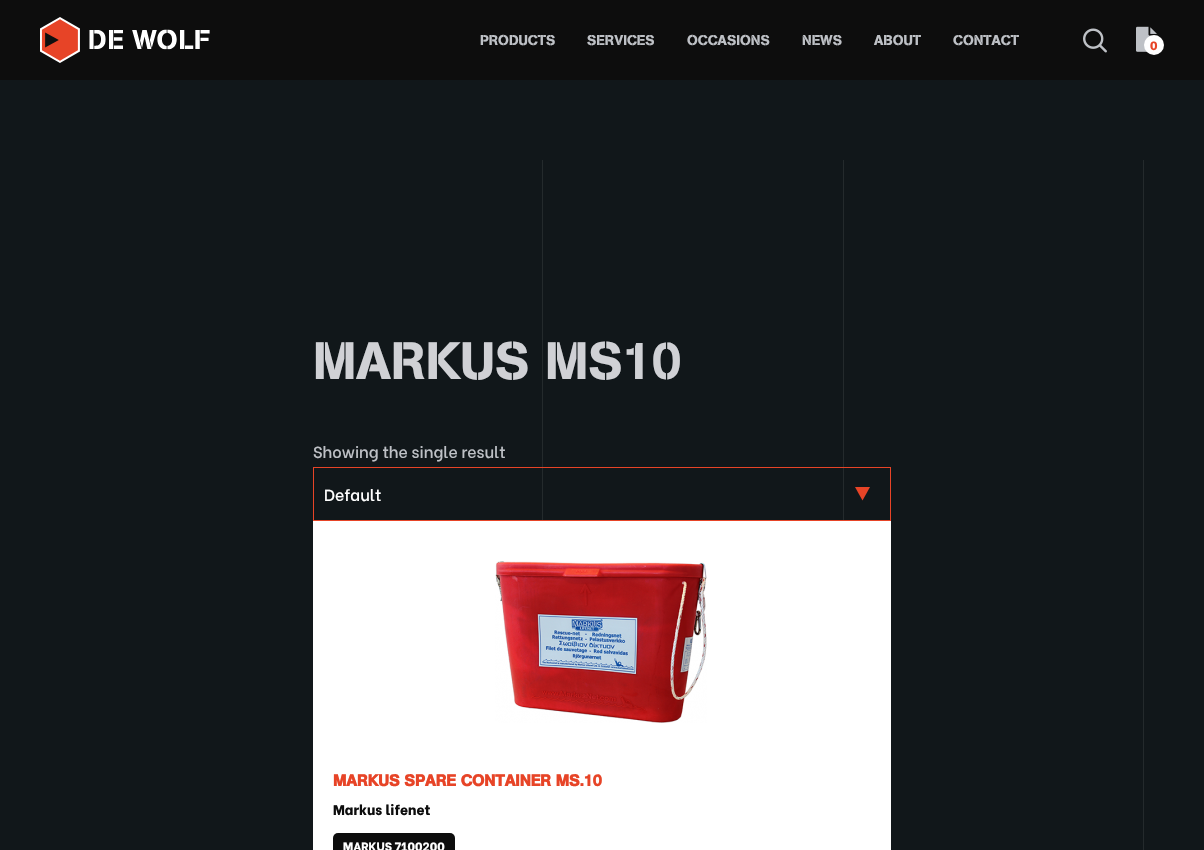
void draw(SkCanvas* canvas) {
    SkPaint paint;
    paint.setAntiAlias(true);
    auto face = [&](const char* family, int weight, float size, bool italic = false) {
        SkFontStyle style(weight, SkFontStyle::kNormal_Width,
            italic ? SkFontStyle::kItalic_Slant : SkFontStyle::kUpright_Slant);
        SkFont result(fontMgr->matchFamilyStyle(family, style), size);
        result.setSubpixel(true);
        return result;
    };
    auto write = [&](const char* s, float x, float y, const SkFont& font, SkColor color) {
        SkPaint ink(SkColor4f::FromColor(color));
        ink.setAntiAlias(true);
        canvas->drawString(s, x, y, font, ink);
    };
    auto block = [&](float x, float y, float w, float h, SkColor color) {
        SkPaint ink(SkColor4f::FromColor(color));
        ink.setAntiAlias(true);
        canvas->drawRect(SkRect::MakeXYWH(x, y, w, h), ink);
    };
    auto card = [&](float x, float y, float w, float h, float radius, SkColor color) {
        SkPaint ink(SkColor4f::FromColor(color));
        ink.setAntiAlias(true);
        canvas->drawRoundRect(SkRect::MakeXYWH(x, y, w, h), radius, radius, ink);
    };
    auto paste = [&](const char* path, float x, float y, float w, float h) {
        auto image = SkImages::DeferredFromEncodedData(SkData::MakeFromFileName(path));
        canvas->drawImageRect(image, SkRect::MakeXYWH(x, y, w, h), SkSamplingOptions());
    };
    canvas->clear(SkColorSetRGB(17, 23, 26));
    block(0, 0, 1204, 80, SkColorSetRGB(13, 13, 13));
    paste("pic1.png", 40, 17, 170, 46);
    auto kFont1 = face("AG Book", 400, 14);
    write("PRODUCTS", 480, 45, kFont1, SkColorSetRGB(190, 193, 198));
    write("SERVICES", 587, 45, kFont1, SkColorSetRGB(190, 193, 198));
    write("OCCASIONS", 687, 45, kFont1, SkColorSetRGB(190, 193, 198));
    write("NEWS", 802, 45, kFont1, SkColorSetRGB(190, 193, 198));
    write("ABOUT", 874, 45, kFont1, SkColorSetRGB(190, 193, 198));
    write("CONTACT", 953, 45, kFont1, SkColorSetRGB(190, 193, 198));
    paste("pic2.png", 1083, 28, 24, 25);
    paste("pic3.png", 1136, 26, 22, 26);
    paint.setColor(SK_ColorWHITE);
    canvas->drawCircle(1154, 45, 10, paint);
    auto kFont2 = face("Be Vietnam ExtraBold", 800, 12);
    write("0", 1150, 50, kFont2, SkColorSetRGB(231, 68, 39));
    block(542, 160, 1, 360, SkColorSetRGB(36, 42, 44));
    block(843, 160, 1, 360, SkColorSetRGB(36, 42, 44));
    block(1143, 160, 1, 690, SkColorSetRGB(36, 42, 44));
    auto kFont3 = face("AG Book", 400, 52);
    write("MARKUS MS10", 313, 379, kFont3, SkColorSetRGB(208, 209, 213));
    auto kFont4 = face("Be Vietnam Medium", 500, 16);
    write("Showing the single result", 313, 458, kFont4, SkColorSetRGB(190, 193, 198));
    paint.setColor(SkColorSetRGB(231, 68, 39));
    canvas->drawPath(SkPathBuilder(SkPathFillType::kEvenOdd).moveTo(870, 487).lineTo(855, 487).lineTo(862.5f, 500.5f).close().detach(), paint);
    paint.setStyle(SkPaint::kStroke_Style);
    paint.setStrokeWidth(1);
    canvas->drawRect(SkRect::MakeXYWH(313.5f, 467.5f, 577, 53), paint);
    write("Default", 324, 501, kFont4, SK_ColorWHITE);
    block(313, 521, 578, 329, SK_ColorWHITE);
    paste("pic4.png", 495, 561, 212, 162);
    auto kFont5 = face("AG Book", 700, 16);
    write("MARKUS SPARE CONTAINER MS.10", 333, 786, kFont5, SkColorSetRGB(231, 68, 39));
    auto kFont6 = face("Be Vietnam ExtraBold", 800, 14);
    write("Markus lifenet", 333, 815, kFont6, SkColorSetRGB(13, 13, 13));
    card(333, 833, 122, 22, 5, SkColorSetRGB(13, 13, 13));
    write("MARKUS 7100200", 343, 851, kFont2, SK_ColorWHITE);
}
